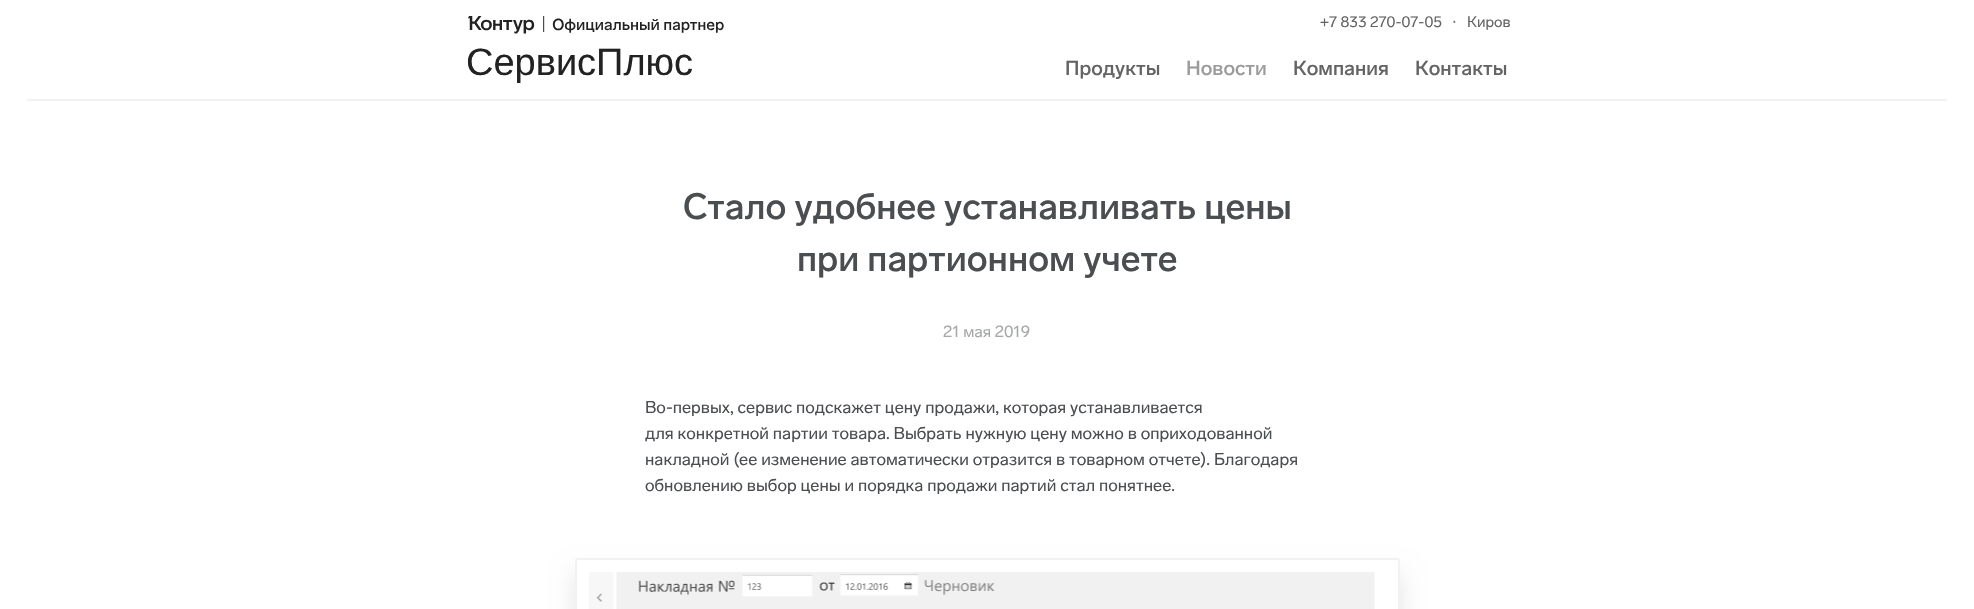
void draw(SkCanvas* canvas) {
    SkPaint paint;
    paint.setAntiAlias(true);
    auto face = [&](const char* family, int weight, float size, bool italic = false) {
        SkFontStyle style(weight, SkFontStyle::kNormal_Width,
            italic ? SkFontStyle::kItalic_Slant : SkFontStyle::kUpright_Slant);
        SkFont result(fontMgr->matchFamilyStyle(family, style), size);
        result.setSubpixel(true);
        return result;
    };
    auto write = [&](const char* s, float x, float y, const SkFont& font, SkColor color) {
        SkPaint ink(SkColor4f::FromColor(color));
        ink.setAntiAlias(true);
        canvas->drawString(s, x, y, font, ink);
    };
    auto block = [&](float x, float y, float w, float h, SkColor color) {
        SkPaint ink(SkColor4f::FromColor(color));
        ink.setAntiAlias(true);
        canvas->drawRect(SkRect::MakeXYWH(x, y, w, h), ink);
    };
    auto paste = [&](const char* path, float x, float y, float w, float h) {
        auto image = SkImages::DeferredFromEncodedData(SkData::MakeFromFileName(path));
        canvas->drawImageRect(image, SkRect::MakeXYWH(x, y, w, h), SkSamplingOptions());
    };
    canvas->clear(SK_ColorWHITE);
    block(27, 99, 1920, 2, SkColorSetRGB(242, 242, 242));
    paste("pic1.png", 468, 16, 256, 18);
    auto kFont1 = face("Liberation Sans", 400, 38);
    write("Сервис‑Плюс", 466, 75, kFont1, SkColorSetRGB(34, 34, 34));
    auto kFont2 = face("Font", 400, 15);
    write("+7 833 270-07-05", 1320, 27, kFont2, SkColorSetRGB(100, 100, 100));
    auto kFont3 = face("DejaVu Sans", 400, 15);
    write("⋅", 1452, 27, kFont3, SkColorSetRGB(100, 100, 100));
    write("Киров", 1467, 27, kFont2, SkColorSetRGB(100, 100, 100));
    auto kFont4 = face("Font", 500, 20);
    write("Продукты", 1065, 75, kFont4, SkColorSetRGB(100, 100, 100));
    write("Новости", 1186, 75, kFont4, SkColorSetRGB(155, 155, 155));
    write("Компания", 1293, 75, kFont4, SkColorSetRGB(100, 100, 100));
    write("Контакты", 1415, 75, kFont4, SkColorSetRGB(100, 100, 100));
    auto kFont5 = face("Font", 500, 36);
    write("Стало удобнее устанавливать цены", 683, 219, kFont5, SkColorSetRGB(75, 78, 81));
    write("при партионном учете", 797, 271, kFont5, SkColorSetRGB(75, 78, 81));
    auto kFont6 = face("Font", 400, 16);
    write("21 мая 2019", 943, 337, kFont6, SkColorSetRGB(165, 167, 168));
    auto kFont7 = face("Font", 400, 17);
    write("Во-первых, сервис подскажет цену продажи, которая устанавливается", 645, 413, kFont7, SkColorSetRGB(75, 78, 81));
    write("для конкретной партии товара. Выбрать нужную цену можно в оприходованной", 645, 439, kFont7, SkColorSetRGB(75, 78, 81));
    write("накладной (ее изменение автоматически отразится в товарном отчете). Благодаря", 645, 465, kFont7, SkColorSetRGB(75, 78, 81));
    write("обновлению выбор цены и порядка продажи партий стал понятнее.", 645, 491, kFont7, SkColorSetRGB(75, 78, 81));
    paint.setColor(SkColorSetARGB(26, 0, 0, 0));
    paint.setMaskFilter(SkMaskFilter::MakeBlur(kNormal_SkBlurStyle, 12.5f));
    canvas->drawRoundRect(SkRect::MakeXYWH(575, 573, 825, 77), 3, 3, paint);
    paint.setMaskFilter(nullptr);
    paint.setColor(SK_ColorWHITE);
    canvas->drawRoundRect(SkRect::MakeXYWH(576, 559, 823, 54), 2, 2, paint);
    paint.setStyle(SkPaint::kStroke_Style);
    paint.setStrokeWidth(2);
    paint.setColor(SkColorSetRGB(242, 242, 242));
    canvas->drawRoundRect(SkRect::MakeXYWH(576, 559, 823, 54), 2, 2, paint);
    paste("pic2.png", 589, 572, 786, 37);
}
